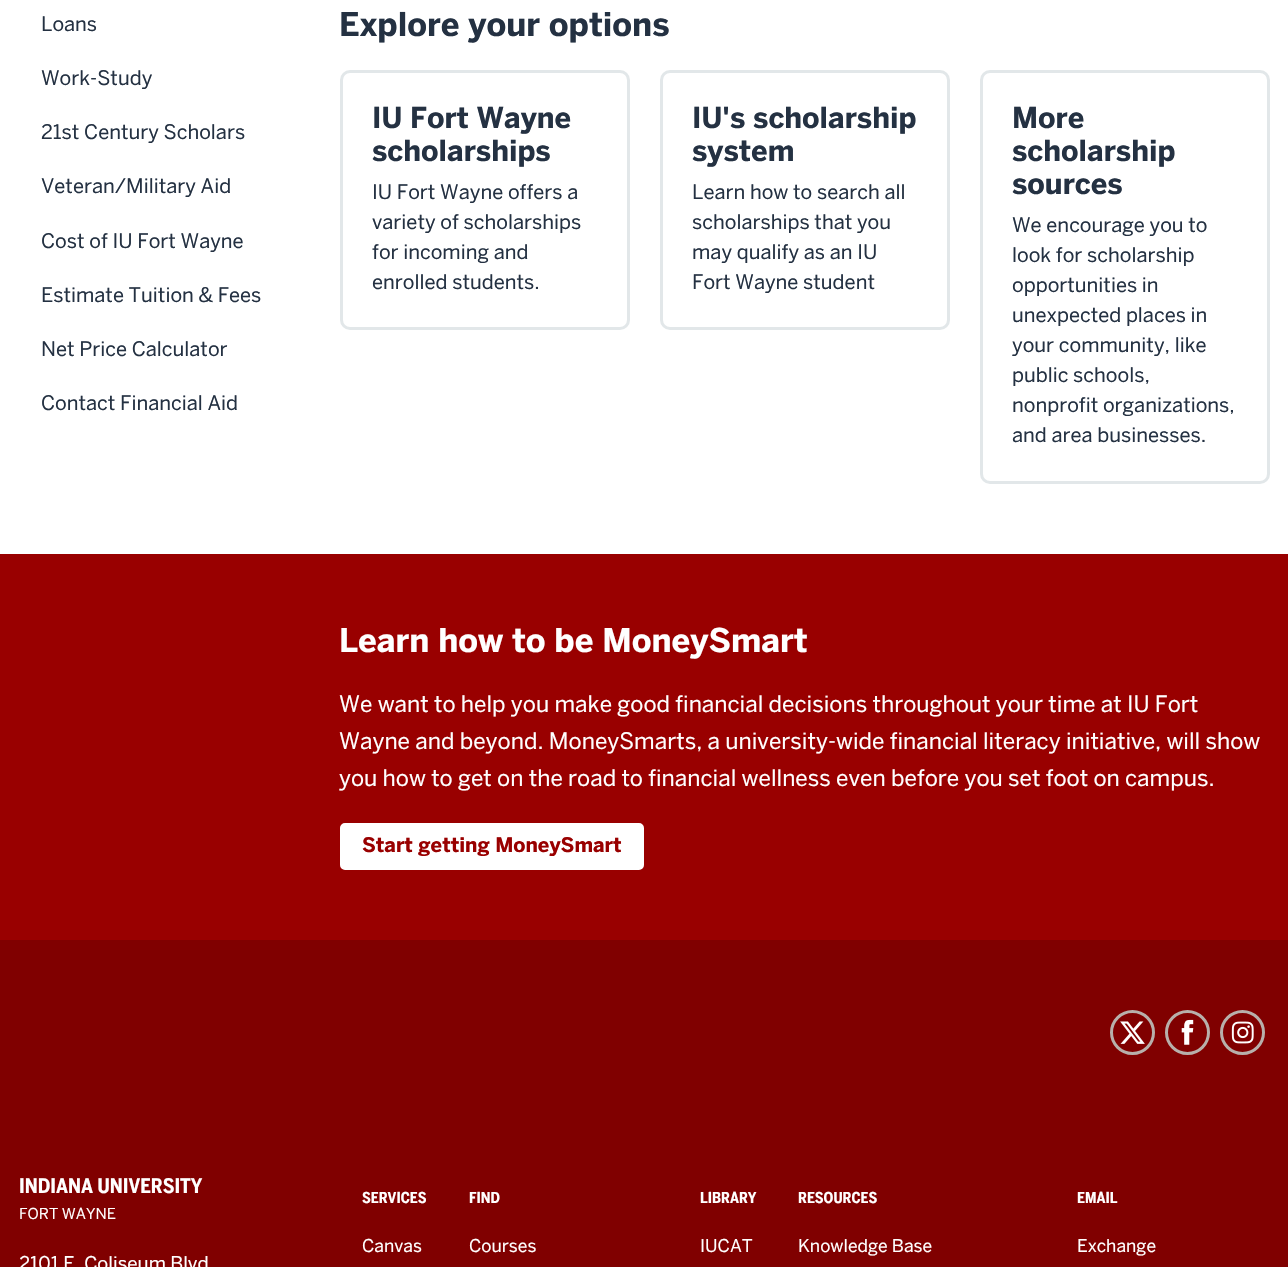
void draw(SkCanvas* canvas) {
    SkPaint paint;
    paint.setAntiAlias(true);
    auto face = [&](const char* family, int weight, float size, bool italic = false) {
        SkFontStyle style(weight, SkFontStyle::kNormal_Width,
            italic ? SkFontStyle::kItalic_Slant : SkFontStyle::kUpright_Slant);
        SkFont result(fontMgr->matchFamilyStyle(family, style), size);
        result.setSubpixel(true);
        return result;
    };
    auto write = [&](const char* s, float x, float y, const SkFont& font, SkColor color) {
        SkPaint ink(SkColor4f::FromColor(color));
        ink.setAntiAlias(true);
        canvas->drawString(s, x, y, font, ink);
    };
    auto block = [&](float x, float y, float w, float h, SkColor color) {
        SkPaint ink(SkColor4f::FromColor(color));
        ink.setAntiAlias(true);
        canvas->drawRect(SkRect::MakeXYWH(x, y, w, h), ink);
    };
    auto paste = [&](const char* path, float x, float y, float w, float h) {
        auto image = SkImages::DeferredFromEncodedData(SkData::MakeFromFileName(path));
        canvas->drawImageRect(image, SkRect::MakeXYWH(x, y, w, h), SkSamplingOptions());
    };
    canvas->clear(SK_ColorWHITE);
    auto kFont1 = face("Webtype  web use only", 400, 20);
    write("Loans", 41, 31, kFont1, SkColorSetRGB(36, 49, 66));
    write("Work-Study", 41, 85, kFont1, SkColorSetRGB(36, 49, 66));
    write("21st Century Scholars", 41, 139, kFont1, SkColorSetRGB(36, 49, 66));
    write("Veteran/Military Aid", 41, 193, kFont1, SkColorSetRGB(36, 49, 66));
    write("Cost of IU Fort Wayne", 41, 248, kFont1, SkColorSetRGB(36, 49, 66));
    write("Estimate Tuition & Fees", 41, 302, kFont1, SkColorSetRGB(36, 49, 66));
    write("Net Price Calculator", 41, 356, kFont1, SkColorSetRGB(36, 49, 66));
    write("Contact Financial Aid", 41, 410, kFont1, SkColorSetRGB(36, 49, 66));
    auto kFont2 = face("Webtype  web use only", 700, 32.5f);
    write("Explore your options", 339, 36, kFont2, SkColorSetRGB(36, 49, 66));
    paint.setStyle(SkPaint::kStroke_Style);
    paint.setStrokeWidth(3);
    paint.setColor(SkColorSetRGB(226, 231, 233));
    canvas->drawRoundRect(SkRect::MakeXYWH(341.5f, 71.5f, 287, 257), 8.5f, 8.5f, paint);
    auto kFont3 = face("Webtype  web use only", 700, 28.75f);
    write("IU Fort Wayne", 372, 128, kFont3, SkColorSetRGB(36, 49, 66));
    write("scholarships", 372, 161, kFont3, SkColorSetRGB(36, 49, 66));
    write("IU Fort Wayne offers a", 372, 199, kFont1, SkColorSetRGB(36, 49, 66));
    write("variety of scholarships", 372, 229, kFont1, SkColorSetRGB(36, 49, 66));
    write("for incoming and", 372, 259, kFont1, SkColorSetRGB(36, 49, 66));
    write("enrolled students.", 372, 289, kFont1, SkColorSetRGB(36, 49, 66));
    canvas->drawRoundRect(SkRect::MakeXYWH(661.5f, 71.5f, 287, 257), 8.5f, 8.5f, paint);
    write("IU's scholarship", 692, 128, kFont3, SkColorSetRGB(36, 49, 66));
    write("system", 692, 161, kFont3, SkColorSetRGB(36, 49, 66));
    write("Learn how to search all", 692, 199, kFont1, SkColorSetRGB(36, 49, 66));
    write("scholarships that you", 692, 229, kFont1, SkColorSetRGB(36, 49, 66));
    write("may qualify as an IU", 692, 259, kFont1, SkColorSetRGB(36, 49, 66));
    write("Fort Wayne student", 692, 289, kFont1, SkColorSetRGB(36, 49, 66));
    canvas->drawRoundRect(SkRect::MakeXYWH(981.5f, 71.5f, 287, 411), 8.5f, 8.5f, paint);
    write("More", 1012, 128, kFont3, SkColorSetRGB(36, 49, 66));
    write("scholarship", 1012, 161, kFont3, SkColorSetRGB(36, 49, 66));
    write("sources", 1012, 194, kFont3, SkColorSetRGB(36, 49, 66));
    write("We encourage you to", 1012, 232, kFont1, SkColorSetRGB(36, 49, 66));
    write("look for scholarship", 1012, 262, kFont1, SkColorSetRGB(36, 49, 66));
    write("opportunities in", 1012, 292, kFont1, SkColorSetRGB(36, 49, 66));
    write("unexpected places in", 1012, 322, kFont1, SkColorSetRGB(36, 49, 66));
    write("your community, like", 1012, 352, kFont1, SkColorSetRGB(36, 49, 66));
    write("public schools,", 1012, 382, kFont1, SkColorSetRGB(36, 49, 66));
    write("nonprofit organizations,", 1012, 412, kFont1, SkColorSetRGB(36, 49, 66));
    write("and area businesses.", 1012, 442, kFont1, SkColorSetRGB(36, 49, 66));
    block(0, 554, 1288, 386, SkColorSetRGB(153, 0, 0));
    write("Learn how to be MoneySmart", 339, 652, kFont2, SK_ColorWHITE);
    auto kFont4 = face("Webtype  web use only", 400, 22.5f);
    write("We want to help you make good financial decisions throughout your time at IU Fort", 339, 712, kFont4, SK_ColorWHITE);
    write("Wayne and beyond. MoneySmarts, a university-wide financial literacy initiative, will show", 339, 749, kFont4, SK_ColorWHITE);
    write("you how to get on the road to financial wellness even before you set foot on campus.", 339, 786, kFont4, SK_ColorWHITE);
    paint.setStyle(SkPaint::kFill_Style);
    paint.setColor(SK_ColorWHITE);
    canvas->drawRoundRect(SkRect::MakeXYWH(341.5f, 824.5f, 301, 44), 3.5f, 3.5f, paint);
    paint.setStyle(SkPaint::kStroke_Style);
    canvas->drawRoundRect(SkRect::MakeXYWH(341.5f, 824.5f, 301, 44), 3.5f, 3.5f, paint);
    auto kFont5 = face("Webtype  web use only", 700, 20);
    write("Start getting MoneySmart", 362, 852, kFont5, SkColorSetRGB(153, 0, 0));
    block(0, 940, 1288, 327, SkColorSetRGB(128, 0, 0));
    paint.setColor(SkColorSetRGB(184, 176, 171));
    canvas->drawCircle(1132.5f, 1032.5f, 21, paint);
    paste("pic1.png", 1120, 1021, 25, 23);
    canvas->drawCircle(1187.5f, 1032.5f, 21, paint);
    paste("pic2.png", 1181, 1019, 13, 26);
    canvas->drawCircle(1242.5f, 1032.5f, 21, paint);
    paste("pic3.png", 1231, 1021, 23, 23);
    auto kFont6 = face("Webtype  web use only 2", 700, 20);
    write("INDIANA UNIVERSITY", 19, 1193, kFont6, SK_ColorWHITE);
    auto kFont7 = face("Webtype  web use only", 400, 15);
    write("FORT WAYNE", 19, 1219, kFont7, SK_ColorWHITE);
    auto kFont8 = face("Webtype  web use only", 400, 18.75f);
    write("2101 E. Coliseum Blvd", 19, 1270, kFont8, SK_ColorWHITE);
    auto kFont9 = face("Webtype  web use only 2", 700, 15);
    write("SERVICES", 362, 1203, kFont9, SK_ColorWHITE);
    auto kFont10 = face("Webtype  web use only", 400, 17.5f);
    write("Canvas", 362, 1252, kFont10, SK_ColorWHITE);
    write("FIND", 469, 1203, kFont9, SK_ColorWHITE);
    write("Courses", 469, 1252, kFont10, SK_ColorWHITE);
    write("LIBRARY", 700, 1203, kFont9, SK_ColorWHITE);
    write("IUCAT", 700, 1252, kFont10, SK_ColorWHITE);
    write("RESOURCES", 798, 1203, kFont9, SK_ColorWHITE);
    write("Knowledge Base", 798, 1252, kFont10, SK_ColorWHITE);
    write("EMAIL", 1077, 1203, kFont9, SK_ColorWHITE);
    write("Exchange", 1077, 1252, kFont10, SK_ColorWHITE);
}
